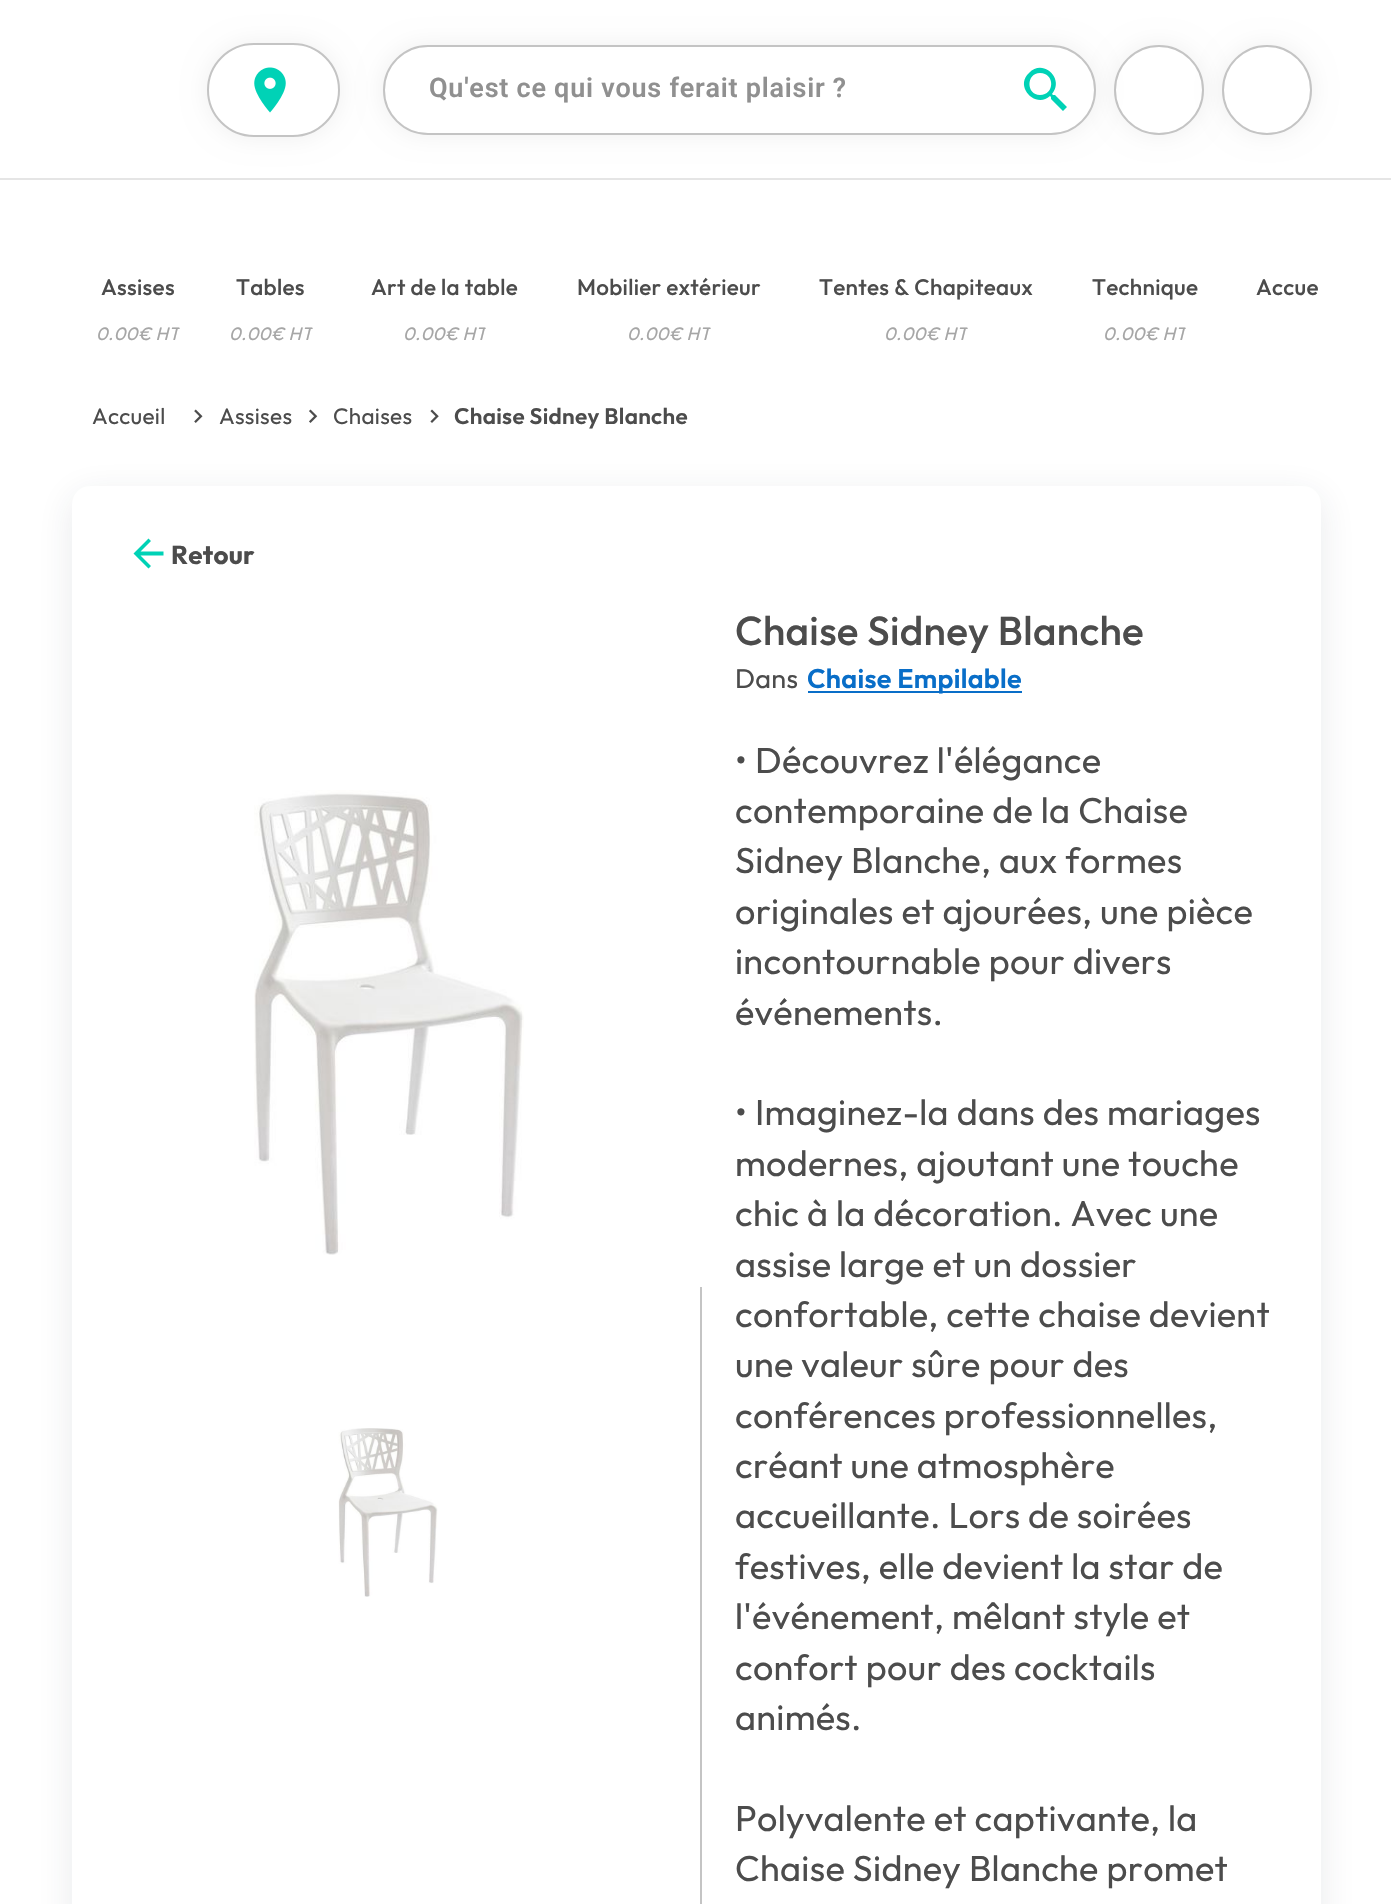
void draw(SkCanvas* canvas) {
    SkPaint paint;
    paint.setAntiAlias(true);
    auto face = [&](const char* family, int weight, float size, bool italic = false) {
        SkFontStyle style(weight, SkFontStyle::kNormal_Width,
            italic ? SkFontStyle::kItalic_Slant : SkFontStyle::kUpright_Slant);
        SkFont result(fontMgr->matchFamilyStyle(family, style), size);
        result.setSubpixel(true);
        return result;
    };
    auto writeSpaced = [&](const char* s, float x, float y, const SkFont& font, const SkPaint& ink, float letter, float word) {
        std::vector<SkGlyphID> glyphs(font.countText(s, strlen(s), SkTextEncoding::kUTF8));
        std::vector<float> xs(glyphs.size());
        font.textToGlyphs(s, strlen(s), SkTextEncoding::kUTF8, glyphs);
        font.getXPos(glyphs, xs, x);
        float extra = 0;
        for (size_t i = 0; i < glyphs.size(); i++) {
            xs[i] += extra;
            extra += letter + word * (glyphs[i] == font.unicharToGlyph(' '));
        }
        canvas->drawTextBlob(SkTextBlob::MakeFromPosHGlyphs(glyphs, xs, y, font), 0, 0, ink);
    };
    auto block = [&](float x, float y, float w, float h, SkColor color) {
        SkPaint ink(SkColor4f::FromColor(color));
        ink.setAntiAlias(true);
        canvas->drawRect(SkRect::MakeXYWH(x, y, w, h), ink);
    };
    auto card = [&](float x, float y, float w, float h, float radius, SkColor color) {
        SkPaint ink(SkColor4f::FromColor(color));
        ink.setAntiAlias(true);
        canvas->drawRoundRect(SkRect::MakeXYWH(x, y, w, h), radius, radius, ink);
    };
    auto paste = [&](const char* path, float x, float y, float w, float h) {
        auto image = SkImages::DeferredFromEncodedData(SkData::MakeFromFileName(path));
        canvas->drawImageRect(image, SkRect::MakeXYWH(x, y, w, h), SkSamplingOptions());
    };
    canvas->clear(SK_ColorWHITE);
    block(0, 178, 1391, 2, SkColorSetRGB(229, 229, 229));
    paint.setColor(SkColorSetARGB(13, 0, 0, 0));
    paint.setMaskFilter(SkMaskFilter::MakeBlur(kNormal_SkBlurStyle, 11));
    canvas->drawRoundRect(SkRect::MakeXYWH(205, 41, 137, 99), 49.5f, 49.5f, paint);
    paint.setMaskFilter(nullptr);
    paint.setColor(SK_ColorWHITE);
    canvas->drawRoundRect(SkRect::MakeXYWH(208, 44, 131, 92), 46, 46, paint);
    paint.setStyle(SkPaint::kStroke_Style);
    paint.setStrokeWidth(2);
    paint.setColor(SkColorSetRGB(196, 196, 196));
    canvas->drawRoundRect(SkRect::MakeXYWH(208, 44, 131, 92), 46, 46, paint);
    paste("pic1.png", 254, 67, 32, 46);
    paint.setStyle(SkPaint::kFill_Style);
    paint.setColor(SkColorSetARGB(13, 0, 0, 0));
    paint.setMaskFilter(SkMaskFilter::MakeBlur(kNormal_SkBlurStyle, 11));
    canvas->drawRoundRect(SkRect::MakeXYWH(1112, 43, 94, 94), 47, 47, paint);
    paint.setMaskFilter(nullptr);
    paint.setColor(SK_ColorWHITE);
    canvas->drawCircle(1159, 90, 44, paint);
    paint.setStyle(SkPaint::kStroke_Style);
    paint.setColor(SkColorSetRGB(196, 196, 196));
    canvas->drawCircle(1159, 90, 44, paint);
    paint.setStyle(SkPaint::kFill_Style);
    paint.setColor(SkColorSetARGB(13, 0, 0, 0));
    paint.setMaskFilter(SkMaskFilter::MakeBlur(kNormal_SkBlurStyle, 11));
    canvas->drawRoundRect(SkRect::MakeXYWH(380, 43, 718, 94), 47, 47, paint);
    paint.setMaskFilter(nullptr);
    paint.setColor(SK_ColorWHITE);
    canvas->drawRoundRect(SkRect::MakeXYWH(384, 46, 711, 88), 44, 44, paint);
    paint.setStyle(SkPaint::kStroke_Style);
    paint.setColor(SkColorSetRGB(196, 196, 196));
    canvas->drawRoundRect(SkRect::MakeXYWH(384, 46, 711, 88), 44, 44, paint);
    auto kFont1 = face("Roboto", 600, 27);
    paint.setStyle(SkPaint::kFill_Style);
    paint.setColor(SkColorSetRGB(144, 144, 144));
    writeSpaced("Qu'est ce qui vous ferait plaisir ?", 429, 97, kFont1, paint, 0.75f, 0);
    paint.setColor(SkColorSetRGB(0, 210, 182));
    canvas->drawPath(SkPathBuilder().moveTo(1055, 95).lineTo(1053, 95).lineTo(1052, 94).cubicTo(1065, 79, 1043, 58, 1029, 73).cubicTo(1014, 87, 1036, 109, 1050, 96).lineTo(1051, 97).lineTo(1051, 99).lineTo(1063, 111).lineTo(1067, 107).close().moveTo(1040, 95).cubicTo(1026, 95, 1026, 73, 1040, 73).cubicTo(1055, 73, 1055, 95, 1040, 95).close().detach(), paint);
    paint.setColor(SkColorSetARGB(13, 0, 0, 0));
    paint.setMaskFilter(SkMaskFilter::MakeBlur(kNormal_SkBlurStyle, 11));
    canvas->drawRoundRect(SkRect::MakeXYWH(1220, 43, 94, 94), 47, 47, paint);
    paint.setMaskFilter(nullptr);
    paint.setColor(SK_ColorWHITE);
    canvas->drawCircle(1267, 90, 44, paint);
    paint.setStyle(SkPaint::kStroke_Style);
    paint.setColor(SkColorSetRGB(196, 196, 196));
    canvas->drawCircle(1267, 90, 44, paint);
    auto kFont2 = face("Outfit", 500, 22.5f);
    paint.setStyle(SkPaint::kFill_Style);
    paint.setColor(SkColorSetRGB(76, 76, 76));
    writeSpaced("Assises", 101, 295, kFont2, paint, 0.3f, 0);
    auto kFont3 = face("Outfit", 400, 18, true);
    paint.setColor(SkColorSetRGB(166, 166, 166));
    writeSpaced("0.00", 96, 340, kFont3, paint, 0.3f, 0);
    canvas->save();
    canvas->clipPath(SkPathBuilder().moveTo(108, 320).lineTo(169, 320).cubicTo(175, 320, 180, 325, 180, 331).lineTo(180, 336).cubicTo(180, 342, 175, 347, 169, 347).lineTo(108, 347).cubicTo(102, 347, 97, 342, 97, 336).lineTo(97, 331).cubicTo(97, 325, 102, 320, 108, 320).close().detach(), true);
    writeSpaced("€ HT", 138, 340, kFont3, paint, 0.3f, 0);
    canvas->restore();
    paint.setColor(SkColorSetRGB(76, 76, 76));
    writeSpaced("Tables", 236, 295, kFont2, paint, 0.3f, 0);
    paint.setColor(SkColorSetRGB(166, 166, 166));
    writeSpaced("0.00", 229, 340, kFont3, paint, 0.3f, 0);
    canvas->save();
    canvas->clipPath(SkPathBuilder().moveTo(241, 320).lineTo(302, 320).cubicTo(308, 320, 313, 325, 313, 331).lineTo(313, 336).cubicTo(313, 342, 308, 347, 302, 347).lineTo(241, 347).cubicTo(235, 347, 230, 342, 230, 336).lineTo(230, 331).cubicTo(230, 325, 235, 320, 241, 320).close().detach(), true);
    writeSpaced("€ HT", 271, 340, kFont3, paint, 0.3f, 0);
    canvas->restore();
    paint.setColor(SkColorSetRGB(76, 76, 76));
    writeSpaced("Art de la table", 371, 295, kFont2, paint, 0.3f, 0);
    paint.setColor(SkColorSetRGB(166, 166, 166));
    writeSpaced("0.00", 403, 340, kFont3, paint, 0.3f, 0);
    canvas->save();
    canvas->clipPath(SkPathBuilder().moveTo(414, 320).lineTo(475, 320).cubicTo(481, 320, 486, 325, 486, 331).lineTo(486, 336).cubicTo(486, 342, 481, 347, 475, 347).lineTo(414, 347).cubicTo(408, 347, 403, 342, 403, 336).lineTo(403, 331).cubicTo(403, 325, 408, 320, 414, 320).close().detach(), true);
    writeSpaced("€ HT", 445, 340, kFont3, paint, 0.3f, 0);
    canvas->restore();
    paint.setColor(SkColorSetRGB(76, 76, 76));
    writeSpaced("Mobilier extérieur", 577, 295, kFont2, paint, 0.3f, 0);
    paint.setColor(SkColorSetRGB(166, 166, 166));
    writeSpaced("0.00", 627, 340, kFont3, paint, 0.3f, 0);
    canvas->save();
    canvas->clipPath(SkPathBuilder().moveTo(639, 320).lineTo(700, 320).cubicTo(706, 320, 711, 325, 711, 331).lineTo(711, 336).cubicTo(711, 342, 706, 347, 700, 347).lineTo(639, 347).cubicTo(633, 347, 628, 342, 628, 336).lineTo(628, 331).cubicTo(628, 325, 633, 320, 639, 320).close().detach(), true);
    writeSpaced("€ HT", 669, 340, kFont3, paint, 0.3f, 0);
    canvas->restore();
    paint.setColor(SkColorSetRGB(76, 76, 76));
    writeSpaced("Tentes & Chapiteaux", 819, 295, kFont2, paint, 0.3f, 0);
    paint.setColor(SkColorSetRGB(166, 166, 166));
    writeSpaced("0.00", 884, 340, kFont3, paint, 0.3f, 0);
    canvas->save();
    canvas->clipPath(SkPathBuilder().moveTo(895, 320).lineTo(957, 320).cubicTo(963, 320, 968, 325, 968, 331).lineTo(968, 336).cubicTo(968, 342, 963, 347, 957, 347).lineTo(895, 347).cubicTo(889, 347, 884, 342, 884, 336).lineTo(884, 331).cubicTo(884, 325, 889, 320, 895, 320).close().detach(), true);
    writeSpaced("€ HT", 926, 340, kFont3, paint, 0.3f, 0);
    canvas->restore();
    paint.setColor(SkColorSetRGB(76, 76, 76));
    writeSpaced("Technique", 1092, 295, kFont2, paint, 0.3f, 0);
    paint.setColor(SkColorSetRGB(166, 166, 166));
    writeSpaced("0.00", 1103, 340, kFont3, paint, 0.3f, 0);
    canvas->save();
    canvas->clipPath(SkPathBuilder().moveTo(1114, 320).lineTo(1175, 320).cubicTo(1181, 320, 1186, 325, 1186, 331).lineTo(1186, 336).cubicTo(1186, 342, 1181, 347, 1175, 347).lineTo(1114, 347).cubicTo(1108, 347, 1103, 342, 1103, 336).lineTo(1103, 331).cubicTo(1103, 325, 1108, 320, 1114, 320).close().detach(), true);
    writeSpaced("€ HT", 1145, 340, kFont3, paint, 0.3f, 0);
    canvas->restore();
    paint.setColor(SkColorSetRGB(76, 76, 76));
    writeSpaced("Accue", 1256, 295, kFont2, paint, 0.3f, 0);
    auto kFont4 = face("Outfit", 400, 22.5f);
    writeSpaced("Accueil", 92, 424, kFont4, paint, 0.3f, 0);
    paste("pic2.png", 194, 409, 9, 14);
    writeSpaced("Assises", 219, 424, kFont4, paint, 0.3f, 0);
    paste("pic3.png", 309, 409, 9, 14);
    writeSpaced("Chaises", 333, 424, kFont4, paint, 0.3f, 0);
    paste("pic4.png", 430, 409, 9, 14);
    auto kFont5 = face("Outfit", 600, 22.5f);
    writeSpaced("Chaise Sidney Blanche", 454, 424, kFont5, paint, 0.3f, 0);
    paint.setColor(SkColorSetARGB(26, 43, 52, 69));
    paint.setMaskFilter(SkMaskFilter::MakeBlur(kNormal_SkBlurStyle, 18));
    canvas->drawRoundRect(SkRect::MakeXYWH(72, 495, 1249, 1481), 18, 18, paint);
    paint.setMaskFilter(nullptr);
    card(72, 486, 1249, 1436, 18, SK_ColorWHITE);
    paint.setColor(SkColorSetRGB(0, 210, 182));
    canvas->drawPath(SkPathBuilder().moveTo(163.5f, 551.5f).lineTo(140.5f, 551.5f).lineTo(151, 541).lineTo(148.5f, 538.5f).lineTo(133.5f, 553.5f).lineTo(148.5f, 568.5f).lineTo(151, 566).lineTo(140.5f, 555.5f).lineTo(163.5f, 555.5f).close().detach(), paint);
    auto kFont6 = face("Outfit", 700, 26);
    paint.setColor(SkColorSetRGB(76, 76, 76));
    writeSpaced("Retour", 171, 564, kFont6, paint, 0.3f, 0);
    paste("pic5.png", 254, 790, 270, 465);
    paste("pic6.png", 338, 1428, 100, 169);
    block(700, 1287, 2, 617, SkColorSetRGB(196, 196, 196));
    auto kFont7 = face("Outfit", 500, 40.5f);
    writeSpaced("Chaise Sidney Blanche", 735, 645, kFont7, paint, 0.3f, 0);
    auto kFont8 = face("Outfit", 400, 27);
    writeSpaced("Dans", 735, 688, kFont8, paint, 0.3f, 0);
    block(808, 691, 214, 2, SkColorSetRGB(9, 110, 200));
    auto kFont9 = face("Outfit", 600, 27);
    paint.setColor(SkColorSetRGB(9, 110, 200));
    writeSpaced("Chaise Empilable", 807, 688, kFont9, paint, 0.3f, 0);
    auto kFont10 = face("Outfit", 400, 36);
    paint.setColor(SkColorSetRGB(76, 76, 76));
    writeSpaced("• Découvrez l'élégance", 735, 773, kFont10, paint, 0.3f, 0);
    writeSpaced("contemporaine de la Chaise", 735, 823, kFont10, paint, 0.3f, 0);
    writeSpaced("Sidney Blanche, aux formes", 735, 873, kFont10, paint, 0.3f, 0);
    writeSpaced("originales et ajourées, une pièce", 735, 924, kFont10, paint, 0.3f, 0);
    writeSpaced("incontournable pour divers", 735, 974, kFont10, paint, 0.3f, 0);
    writeSpaced("événements.", 735, 1025, kFont10, paint, 0.3f, 0);
    writeSpaced("• Imaginez-la dans des mariages", 735, 1125, kFont10, paint, 0.3f, 0);
    writeSpaced("modernes, ajoutant une touche", 735, 1176, kFont10, paint, 0.3f, 0);
    writeSpaced("chic à la décoration. Avec une", 735, 1226, kFont10, paint, 0.3f, 0);
    writeSpaced("assise large et un dossier", 735, 1277, kFont10, paint, 0.3f, 0);
    writeSpaced("confortable, cette chaise devient", 735, 1327, kFont10, paint, 0.3f, 0);
    writeSpaced("une valeur sûre pour des", 735, 1377, kFont10, paint, 0.3f, 0);
    writeSpaced("conférences professionnelles,", 735, 1428, kFont10, paint, 0.3f, 0);
    writeSpaced("créant une atmosphère", 735, 1478, kFont10, paint, 0.3f, 0);
    writeSpaced("accueillante. Lors de soirées", 735, 1528, kFont10, paint, 0.3f, 0);
    writeSpaced("festives, elle devient la star de", 735, 1579, kFont10, paint, 0.3f, 0);
    writeSpaced("l'événement, mêlant style et", 735, 1629, kFont10, paint, 0.3f, 0);
    writeSpaced("confort pour des cocktails", 735, 1680, kFont10, paint, 0.3f, 0);
    writeSpaced("animés.", 735, 1730, kFont10, paint, 0.3f, 0);
    writeSpaced("Polyvalente et captivante, la", 735, 1831, kFont10, paint, 0.3f, 0);
    writeSpaced("Chaise Sidney Blanche promet", 735, 1881, kFont10, paint, 0.3f, 0);
}
